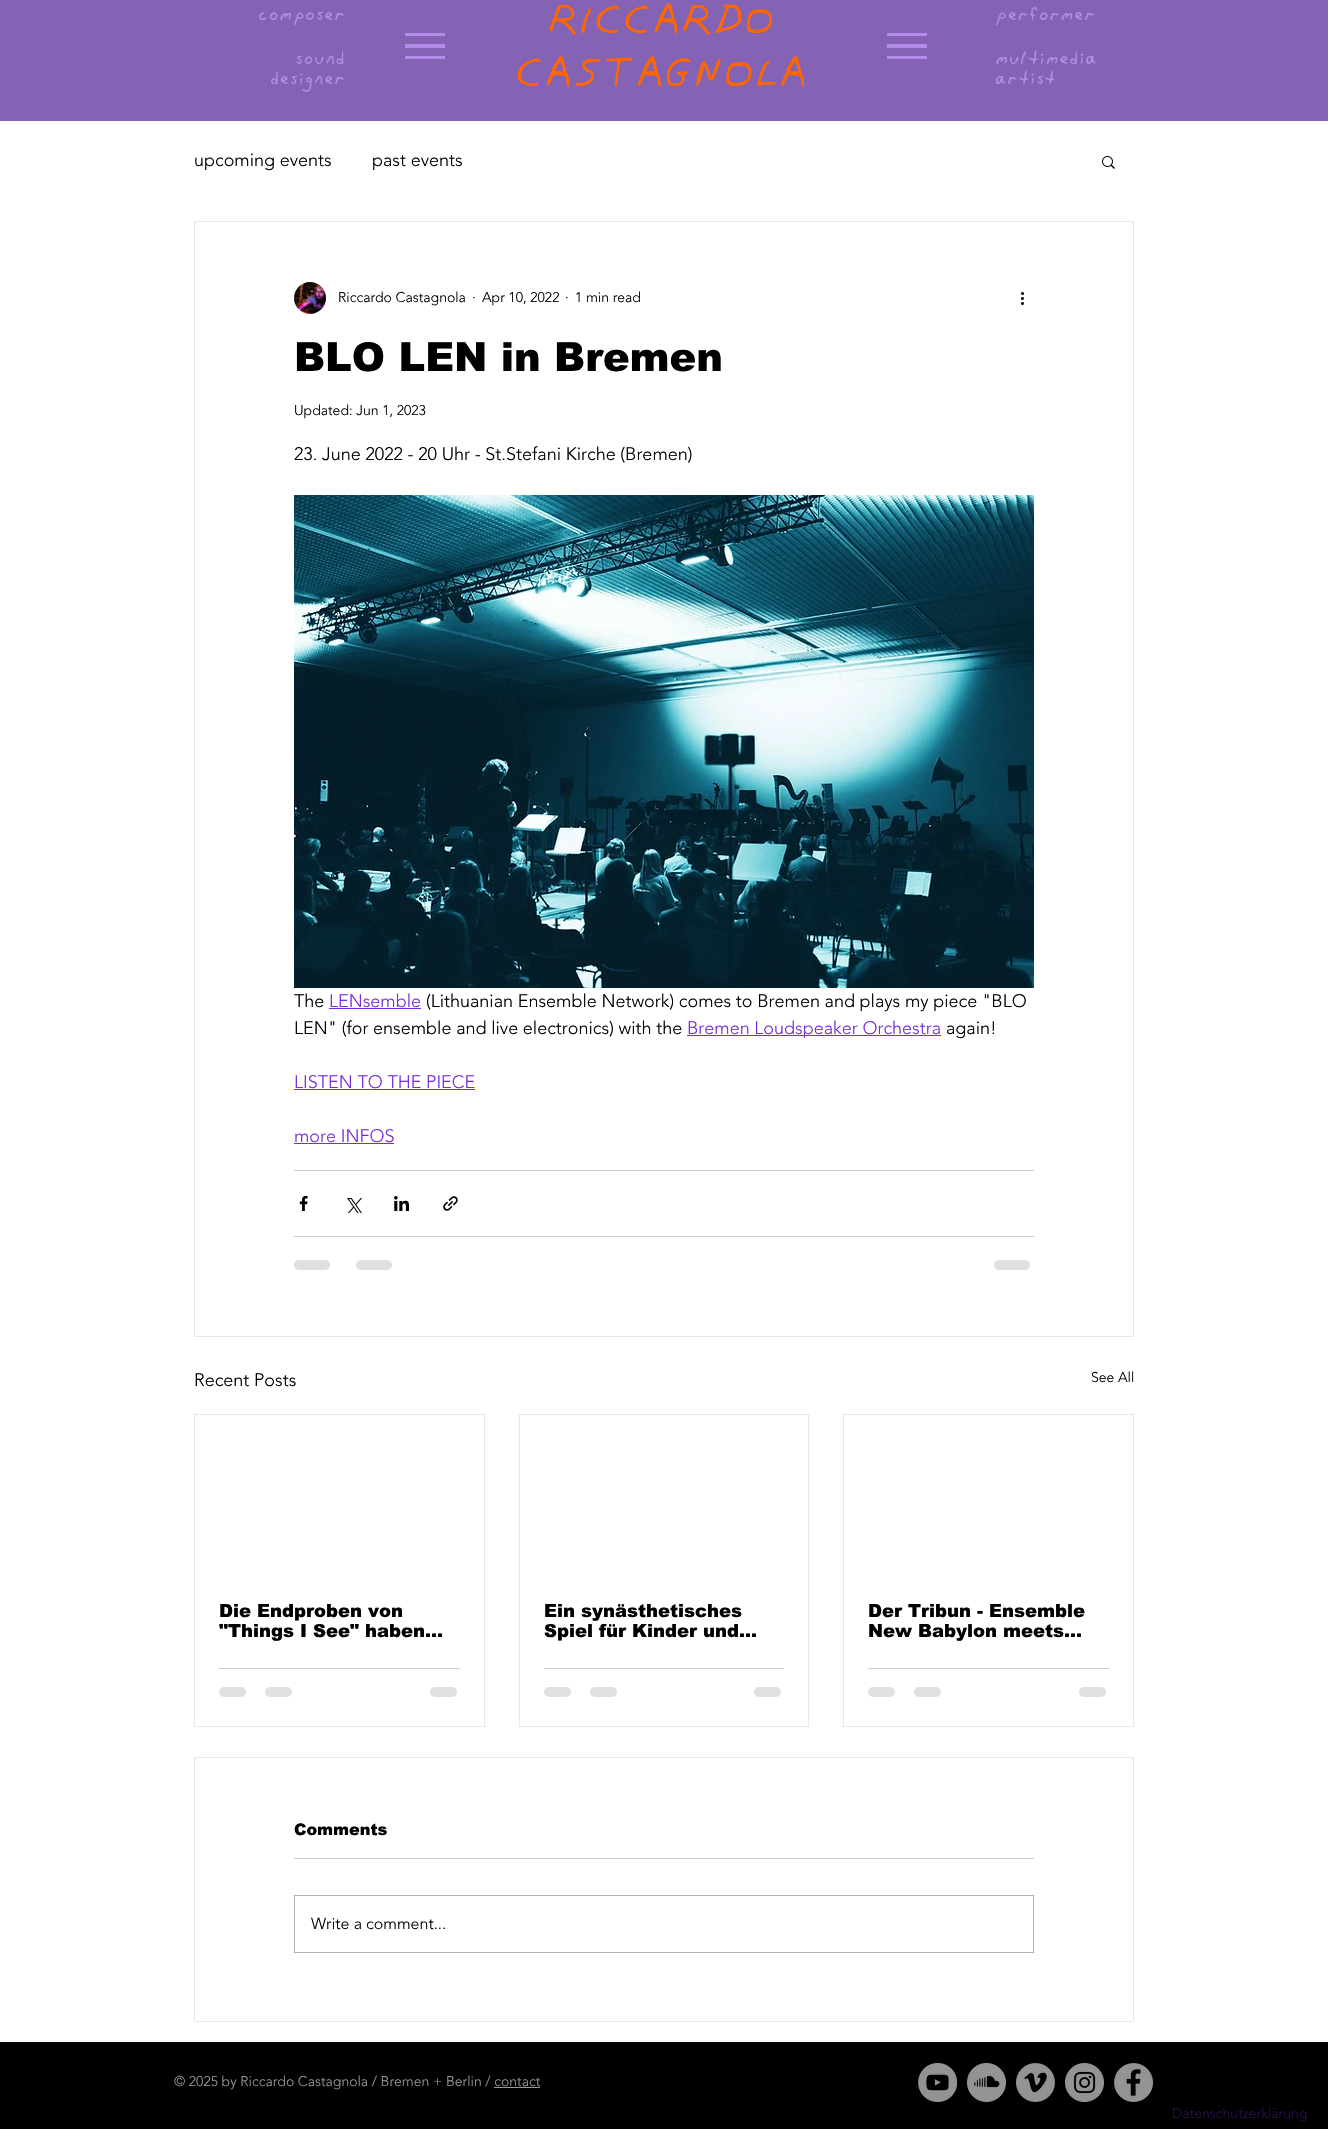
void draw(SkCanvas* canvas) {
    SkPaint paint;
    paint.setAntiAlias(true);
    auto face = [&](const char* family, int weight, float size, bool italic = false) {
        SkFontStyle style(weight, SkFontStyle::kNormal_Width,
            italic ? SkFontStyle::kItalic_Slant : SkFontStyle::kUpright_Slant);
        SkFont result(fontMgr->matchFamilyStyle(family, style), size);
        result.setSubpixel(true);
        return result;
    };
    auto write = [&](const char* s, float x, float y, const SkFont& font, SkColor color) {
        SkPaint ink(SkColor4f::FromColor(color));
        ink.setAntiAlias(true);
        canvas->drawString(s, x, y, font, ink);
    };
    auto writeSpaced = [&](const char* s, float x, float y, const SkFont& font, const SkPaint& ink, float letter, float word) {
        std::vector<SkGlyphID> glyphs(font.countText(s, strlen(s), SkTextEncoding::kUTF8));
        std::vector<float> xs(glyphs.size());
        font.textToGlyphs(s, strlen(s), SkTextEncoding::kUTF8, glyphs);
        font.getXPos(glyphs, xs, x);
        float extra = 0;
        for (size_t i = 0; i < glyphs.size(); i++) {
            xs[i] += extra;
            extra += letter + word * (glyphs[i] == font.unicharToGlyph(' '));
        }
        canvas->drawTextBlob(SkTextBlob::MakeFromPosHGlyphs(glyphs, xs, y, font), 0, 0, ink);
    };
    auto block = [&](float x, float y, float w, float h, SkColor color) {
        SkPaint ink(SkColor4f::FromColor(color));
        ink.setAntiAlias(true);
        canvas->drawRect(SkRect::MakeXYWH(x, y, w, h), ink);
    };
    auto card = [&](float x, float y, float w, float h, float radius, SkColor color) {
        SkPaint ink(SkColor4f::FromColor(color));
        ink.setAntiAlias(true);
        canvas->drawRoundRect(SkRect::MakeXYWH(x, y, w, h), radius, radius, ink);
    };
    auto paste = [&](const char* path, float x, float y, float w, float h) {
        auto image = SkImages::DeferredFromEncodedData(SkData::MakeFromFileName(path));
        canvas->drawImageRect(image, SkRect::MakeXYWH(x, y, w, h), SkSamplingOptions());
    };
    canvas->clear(SK_ColorWHITE);
    block(0, 0, 1328, 121, SkColorSetRGB(132, 98, 180));
    auto kFont1 = face("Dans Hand", 700, 26);
    paint.setColor(SkColorSetRGB(178, 140, 232));
    writeSpaced("composer", 259, 20, kFont1, paint, 2.6f, 0);
    auto kFont2 = face("Dans Hand", 700, 50);
    paint.setColor(SkColorSetRGB(255, 102, 0));
    writeSpaced("RICCARDO", 549, 33, kFont2, paint, 5, 0);
    writeSpaced("CASTAGNOLA", 517, 86, kFont2, paint, 5, 0);
    paint.setColor(SkColorSetRGB(178, 140, 232));
    writeSpaced("performer", 996, 20, kFont1, paint, 2.6f, 0);
    block(405, 56, 40, 3, SkColorSetRGB(178, 140, 232));
    block(405, 33, 40, 3, SkColorSetRGB(178, 140, 232));
    block(405, 44, 40, 4, SkColorSetRGB(178, 140, 232));
    block(887, 56, 40, 3, SkColorSetRGB(178, 140, 232));
    block(887, 33, 40, 3, SkColorSetRGB(178, 140, 232));
    block(887, 44, 40, 4, SkColorSetRGB(178, 140, 232));
    writeSpaced("sound", 296, 64, kFont1, paint, 2.6f, 0);
    writeSpaced("designer", 271, 84, kFont1, paint, 2.6f, 0);
    writeSpaced("multimedia", 996, 64, kFont1, paint, 2.6f, 0);
    writeSpaced("artist", 996, 84, kFont1, paint, 2.6f, 0);
    auto kFont3 = face("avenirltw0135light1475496", 300, 18);
    write("upcoming events", 194, 166, kFont3, SK_ColorBLACK);
    write("past events", 372, 166, kFont3, SK_ColorBLACK);
    paste("pic1.png", 1102, 156, 13, 13);
    paint.setStyle(SkPaint::kStroke_Style);
    paint.setStrokeWidth(1);
    paint.setColor(SkColorSetRGB(232, 230, 230));
    canvas->drawRect(SkRect::MakeXYWH(194.5f, 221.5f, 939, 1115), paint);
    paste("pic2.png", 294, 282, 32, 32);
    auto kFont4 = face("avenirltw0135light1475496", 300, 14);
    write("Riccardo Castagnola", 338, 302, kFont4, SK_ColorBLACK);
    write("·", 472, 302, kFont4, SK_ColorBLACK);
    write("Apr 10, 2022", 482, 302, kFont4, SK_ColorBLACK);
    write("·", 565, 302, kFont4, SK_ColorBLACK);
    write("1 min read", 575, 302, kFont4, SK_ColorBLACK);
    paste("pic3.png", 1021, 292, 3, 13);
    auto kFont5 = face("arial", 900, 40);
    write("BLO LEN in Bremen", 294, 371, kFont5, SK_ColorBLACK);
    write("Updated: Jun 1, 2023", 294, 415, kFont4, SK_ColorBLACK);
    write("23. June 2022 - 20 Uhr - St.Stefani Kirche (Bremen)", 294, 460, kFont3, SK_ColorBLACK);
    paste("pic4.png", 294, 495, 740, 493);
    write("The", 294, 1007, kFont3, SK_ColorBLACK);
    write("LENsemble", 329, 1007, kFont3, SkColorSetRGB(118, 45, 221));
    block(329, 1008, 92, 1, SkColorSetRGB(118, 45, 221));
    write("(Lithuanian Ensemble Network) comes to Bremen and plays my piece \"BLO", 426, 1007, kFont3, SK_ColorBLACK);
    write("LEN\" (for ensemble and live electronics) with the", 294, 1034, kFont3, SK_ColorBLACK);
    block(687, 1035, 254, 1, SkColorSetRGB(118, 45, 221));
    write("Bremen Loudspeaker Orchestra", 687, 1034, kFont3, SkColorSetRGB(118, 45, 221));
    write("again!", 946, 1034, kFont3, SK_ColorBLACK);
    write("LISTEN TO THE PIECE", 294, 1088, kFont3, SkColorSetRGB(118, 45, 221));
    block(294, 1089, 181, 1, SkColorSetRGB(118, 45, 221));
    write("more INFOS", 294, 1142, kFont3, SkColorSetRGB(118, 45, 221));
    block(294, 1143, 100, 1, SkColorSetRGB(118, 45, 221));
    block(294, 1170, 740, 1, SkColorSetRGB(204, 204, 204));
    paste("pic5.png", 299, 1196, 9, 15);
    paste("pic6.png", 347, 1198, 15, 15);
    paste("pic7.png", 394, 1196, 15, 15);
    paste("pic8.png", 443, 1196, 15, 15);
    block(294, 1236, 740, 1, SkColorSetRGB(204, 204, 204));
    card(294, 1260, 36, 10, 5, SkColorSetRGB(224, 224, 224));
    card(356, 1260, 36, 10, 5, SkColorSetRGB(224, 224, 224));
    card(994, 1260, 36, 10, 5, SkColorSetRGB(224, 224, 224));
    write("Recent Posts", 194, 1386, kFont3, SK_ColorBLACK);
    write("See All", 1091, 1382, kFont4, SK_ColorBLACK);
    canvas->drawRect(SkRect::MakeXYWH(194.5f, 1414.5f, 290, 312), paint);
    auto kFont6 = face("arial", 900, 18);
    write("Die Endproben von", 219, 1617, kFont6, SK_ColorBLACK);
    write("\"Things I See\" haben…", 219, 1637, kFont6, SK_ColorBLACK);
    block(219, 1668, 241, 1, SkColorSetRGB(204, 204, 204));
    card(219, 1687, 27, 10, 5, SkColorSetRGB(224, 224, 224));
    card(265, 1687, 27, 10, 5, SkColorSetRGB(224, 224, 224));
    card(430, 1687, 27, 10, 5, SkColorSetRGB(224, 224, 224));
    canvas->drawRect(SkRect::MakeXYWH(519.5f, 1414.5f, 289, 312), paint);
    write("Ein synästhetisches", 544, 1617, kFont6, SK_ColorBLACK);
    write("Spiel für Kinder und…", 544, 1637, kFont6, SK_ColorBLACK);
    block(544, 1668, 240, 1, SkColorSetRGB(204, 204, 204));
    card(544, 1687, 27, 10, 5, SkColorSetRGB(224, 224, 224));
    card(590, 1687, 27, 10, 5, SkColorSetRGB(224, 224, 224));
    card(754, 1687, 27, 10, 5, SkColorSetRGB(224, 224, 224));
    canvas->drawRect(SkRect::MakeXYWH(843.5f, 1414.5f, 290, 312), paint);
    write("Der Tribun - Ensemble", 868, 1617, kFont6, SK_ColorBLACK);
    write("New Babylon meets…", 868, 1637, kFont6, SK_ColorBLACK);
    block(868, 1668, 241, 1, SkColorSetRGB(204, 204, 204));
    card(868, 1687, 27, 10, 5, SkColorSetRGB(224, 224, 224));
    card(914, 1687, 27, 10, 5, SkColorSetRGB(224, 224, 224));
    card(1079, 1687, 27, 10, 5, SkColorSetRGB(224, 224, 224));
    canvas->drawRect(SkRect::MakeXYWH(194.5f, 1757.5f, 939, 264), paint);
    auto kFont7 = face("arial", 900, 16);
    write("Comments", 294, 1835, kFont7, SK_ColorBLACK);
    block(294, 1858, 740, 1, SkColorSetRGB(204, 204, 204));
    paint.setColor(SkColorSetRGB(179, 179, 179));
    canvas->drawRect(SkRect::MakeXYWH(294.5f, 1895.5f, 739, 57), paint);
    auto kFont8 = face("avenirltw0135light1475496", 300, 16);
    write("Write a comment...", 311, 1929, kFont8, SK_ColorBLACK);
    block(0, 2042, 1328, 87, SK_ColorBLACK);
    write("© 2025 by Riccardo Castagnola / Bremen + Berlin / contact", 174, 2086, kFont4, SkColorSetRGB(153, 153, 151));
    block(494, 2087, 46, 1, SkColorSetRGB(153, 153, 151));
    paste("pic9.png", 918, 2063, 39, 39);
    paste("pic10.png", 967, 2063, 39, 39);
    paste("pic11.png", 1016, 2063, 39, 39);
    paste("pic12.png", 1065, 2063, 39, 39);
    paste("pic13.png", 1114, 2063, 39, 39);
    write("Datenschutzerklärung", 1172, 2118, kFont4, SkColorSetRGB(39, 15, 74));
}
